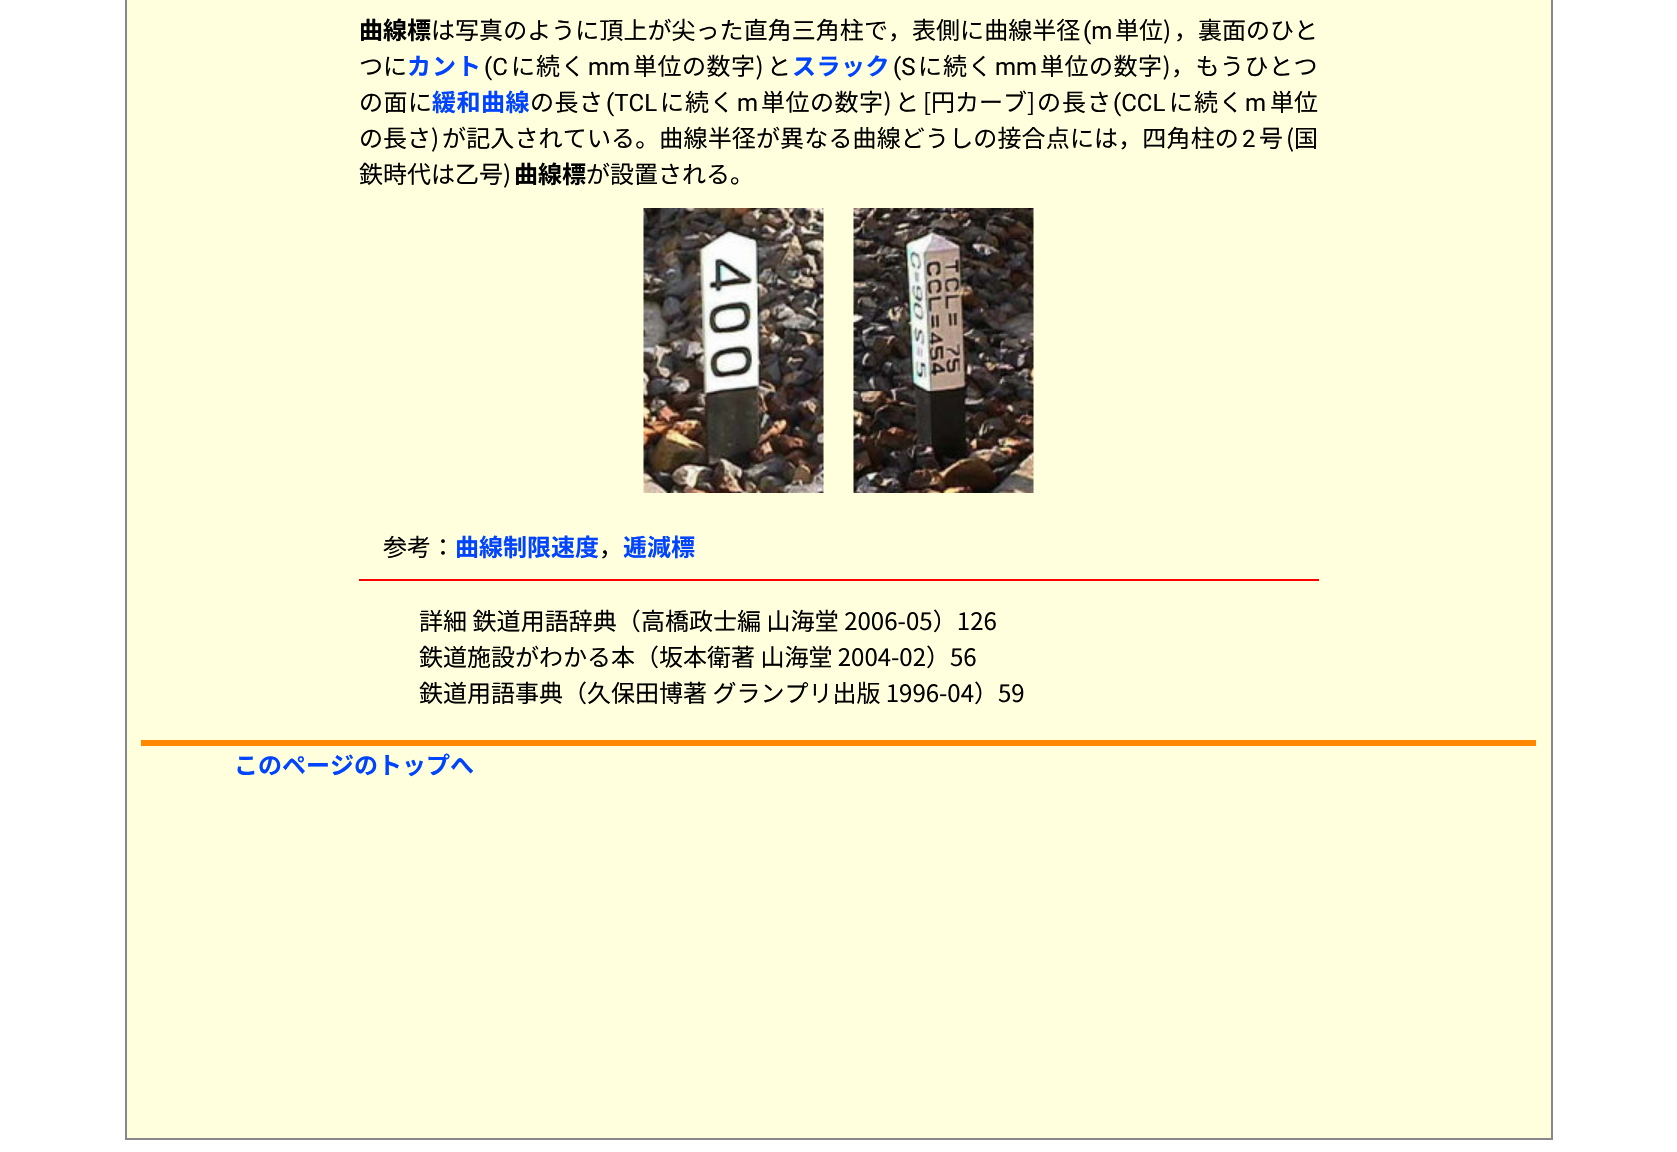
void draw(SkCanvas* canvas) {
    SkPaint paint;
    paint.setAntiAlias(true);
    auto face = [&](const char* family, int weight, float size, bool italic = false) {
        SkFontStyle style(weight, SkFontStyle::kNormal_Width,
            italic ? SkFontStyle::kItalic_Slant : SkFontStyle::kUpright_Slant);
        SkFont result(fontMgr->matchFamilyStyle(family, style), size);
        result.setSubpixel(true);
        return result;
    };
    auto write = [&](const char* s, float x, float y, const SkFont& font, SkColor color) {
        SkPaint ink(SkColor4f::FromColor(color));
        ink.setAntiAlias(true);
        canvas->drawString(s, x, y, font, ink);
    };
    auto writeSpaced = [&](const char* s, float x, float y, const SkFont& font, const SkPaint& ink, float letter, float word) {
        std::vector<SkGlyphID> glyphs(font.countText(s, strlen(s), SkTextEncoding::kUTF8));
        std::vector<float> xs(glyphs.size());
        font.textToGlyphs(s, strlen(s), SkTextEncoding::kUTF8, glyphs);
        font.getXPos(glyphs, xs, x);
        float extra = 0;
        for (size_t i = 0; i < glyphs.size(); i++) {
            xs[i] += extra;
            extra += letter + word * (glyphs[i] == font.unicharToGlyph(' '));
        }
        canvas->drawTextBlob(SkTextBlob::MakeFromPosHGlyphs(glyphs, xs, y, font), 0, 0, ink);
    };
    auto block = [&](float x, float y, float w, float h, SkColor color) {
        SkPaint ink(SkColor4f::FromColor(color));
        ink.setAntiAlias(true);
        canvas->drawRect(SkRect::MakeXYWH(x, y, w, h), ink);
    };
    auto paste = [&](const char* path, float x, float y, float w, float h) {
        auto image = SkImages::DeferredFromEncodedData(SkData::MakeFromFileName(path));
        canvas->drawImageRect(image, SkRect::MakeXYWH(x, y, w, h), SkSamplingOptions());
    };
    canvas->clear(SK_ColorWHITE);
    paint.setColor(SkColorSetRGB(255, 255, 221));
    canvas->drawRect(SkRect::MakeXYWH(126, -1, 1426, 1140), paint);
    paint.setStyle(SkPaint::kStroke_Style);
    paint.setStrokeWidth(2);
    paint.setColor(SkColorSetRGB(136, 136, 136));
    canvas->drawRect(SkRect::MakeXYWH(126, -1, 1426, 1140), paint);
    auto kFont1 = face("Noto Sans JP", 700, 24);
    write("曲線標", 359, 39, kFont1, SK_ColorBLACK);
    auto kFont2 = face("Noto Sans JP", 400, 24);
    paint.setStyle(SkPaint::kFill_Style);
    paint.setColor(SK_ColorBLACK);
    writeSpaced("は写真のように頂上が尖った直角三角柱で，表側に曲線半径", 431, 39, kFont2, paint, 0.05f, 0);
    auto kFont3 = face("Roboto", 400, 24);
    write("(m", 1083, 39, kFont3, SK_ColorBLACK);
    write("単位)", 1115, 39, kFont2, SK_ColorBLACK);
    write("，裏面のひと", 1174, 39, kFont2, SK_ColorBLACK);
    write("つに", 359, 75, kFont2, SK_ColorBLACK);
    paint.setColor(SkColorSetRGB(0, 68, 255));
    writeSpaced("カント", 407, 75, kFont1, paint, 1, 0);
    write("(C", 484, 75, kFont3, SK_ColorBLACK);
    paint.setColor(SK_ColorBLACK);
    writeSpaced("に続く", 511, 75, kFont2, paint, 1, 0);
    write("mm", 588, 75, kFont3, SK_ColorBLACK);
    writeSpaced("単位の数字)", 633, 75, kFont2, paint, 0.5f, 0);
    write("と", 767, 75, kFont2, SK_ColorBLACK);
    paint.setColor(SkColorSetRGB(0, 68, 255));
    writeSpaced("スラック", 792, 75, kFont1, paint, 0.5f, 0);
    write("(S", 893, 75, kFont3, SK_ColorBLACK);
    paint.setColor(SK_ColorBLACK);
    writeSpaced("に続く", 918, 75, kFont2, paint, 1, 0);
    write("mm", 995, 75, kFont3, SK_ColorBLACK);
    writeSpaced("単位の数字)，もうひとつ", 1040, 75, kFont2, paint, 0.5f, 0);
    writeSpaced("の面に", 359, 111, kFont2, paint, 0.5f, 0);
    paint.setColor(SkColorSetRGB(0, 68, 255));
    writeSpaced("緩和曲線", 432, 111, kFont1, paint, 0.5f, 0);
    paint.setColor(SK_ColorBLACK);
    writeSpaced("の長さ", 530, 111, kFont2, paint, 0.5f, 0);
    write("(TCL", 606, 111, kFont3, SK_ColorBLACK);
    writeSpaced("に続く", 660, 111, kFont2, paint, 1, 0);
    write("m", 737, 111, kFont3, SK_ColorBLACK);
    writeSpaced("単位の数字)", 761, 111, kFont2, paint, 0.5f, 0);
    write("と", 895, 111, kFont2, SK_ColorBLACK);
    write("[円カーブ]", 923, 111, kFont2, SK_ColorBLACK);
    writeSpaced("の長さ", 1037, 111, kFont2, paint, 1, 0);
    write("(CCL", 1113, 111, kFont3, SK_ColorBLACK);
    writeSpaced("に続く", 1169, 111, kFont2, paint, 1, 0);
    write("m", 1245, 111, kFont3, SK_ColorBLACK);
    write("単位", 1270, 111, kFont2, SK_ColorBLACK);
    write("の長さ)", 359, 147, kFont2, SK_ColorBLACK);
    writeSpaced("が記入されている。曲線半径が異なる曲線どうしの接合点には，四角柱の", 442, 147, kFont2, paint, 0.15f, 0);
    write("2", 1242, 147, kFont3, SK_ColorBLACK);
    write("号", 1259, 147, kFont2, SK_ColorBLACK);
    write("(国", 1286, 147, kFont2, SK_ColorBLACK);
    write("鉄時代は乙号)", 359, 183, kFont2, SK_ColorBLACK);
    write("曲線標", 514, 183, kFont1, SK_ColorBLACK);
    write("が設置される。", 586, 183, kFont2, SK_ColorBLACK);
    paste("pic1.png", 643, 208, 181, 285);
    paste("pic2.png", 853, 208, 181, 285);
    write("参考：", 383, 556, kFont2, SK_ColorBLACK);
    write("曲線制限速度", 455, 556, kFont1, SkColorSetRGB(0, 68, 255));
    write("，", 599, 556, kFont2, SK_ColorBLACK);
    write("逓減標", 623, 556, kFont1, SkColorSetRGB(0, 68, 255));
    block(359, 579, 960, 2, SkColorSetRGB(255, 0, 0));
    writeSpaced("詳細 鉄道用語辞典（高橋政士編 山海堂 2006-05）126", 419, 630, kFont2, paint, 0.05f, 0);
    write("鉄道施設がわかる本（坂本衛著 山海堂 2004-02）56", 419, 666, kFont2, SK_ColorBLACK);
    write("鉄道用語事典（久保田博著 グランプリ出版 1996-04）59", 419, 702, kFont2, SK_ColorBLACK);
    block(141, 740, 1395, 6, SkColorSetRGB(255, 136, 0));
    write("このページのトップへ", 234, 774, kFont1, SkColorSetRGB(0, 68, 255));
}
